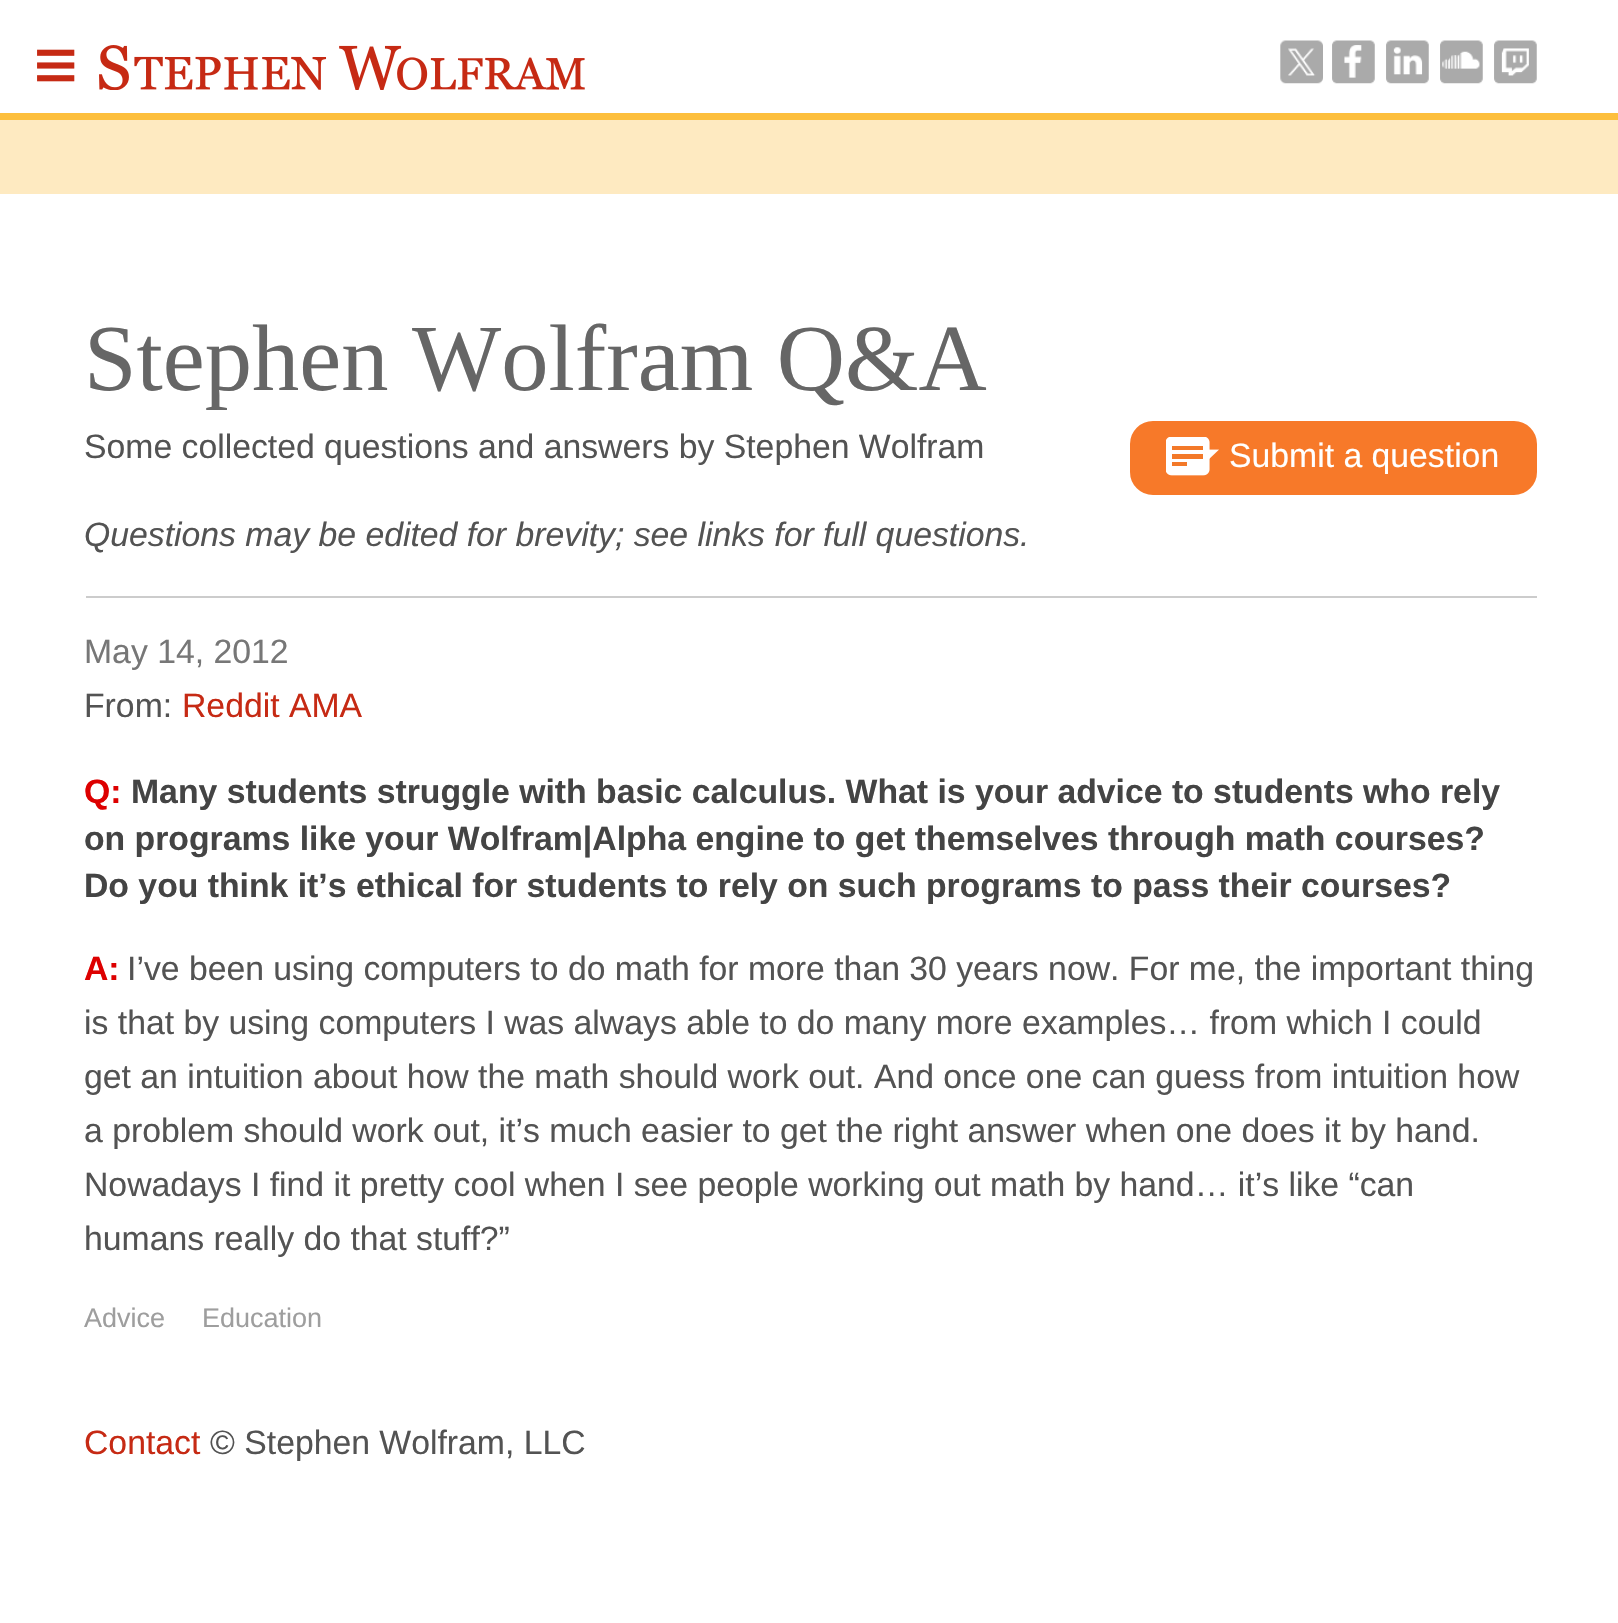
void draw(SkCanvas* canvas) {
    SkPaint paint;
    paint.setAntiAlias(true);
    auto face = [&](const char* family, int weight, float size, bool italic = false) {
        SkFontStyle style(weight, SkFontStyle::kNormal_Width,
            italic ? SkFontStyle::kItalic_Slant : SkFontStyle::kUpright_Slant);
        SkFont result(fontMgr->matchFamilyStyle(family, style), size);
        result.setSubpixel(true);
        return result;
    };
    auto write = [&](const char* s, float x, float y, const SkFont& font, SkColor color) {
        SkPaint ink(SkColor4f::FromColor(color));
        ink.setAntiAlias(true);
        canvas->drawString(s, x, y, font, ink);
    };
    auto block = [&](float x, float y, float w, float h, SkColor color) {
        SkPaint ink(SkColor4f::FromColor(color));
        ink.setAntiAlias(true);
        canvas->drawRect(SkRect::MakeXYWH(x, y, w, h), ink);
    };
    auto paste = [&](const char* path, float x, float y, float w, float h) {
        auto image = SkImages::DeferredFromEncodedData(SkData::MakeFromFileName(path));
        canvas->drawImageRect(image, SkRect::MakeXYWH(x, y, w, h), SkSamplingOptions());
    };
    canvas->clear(SK_ColorWHITE);
    auto kFont1 = face("DejaVu Sans Mono", 400, 72);
    write("≡", 34, 88, kFont1, SkColorSetRGB(198, 42, 20));
    paste("pic1.png", 99, 45, 486, 45);
    paste("pic2.png", 1280, 40, 43, 44);
    paste("pic3.png", 1332, 40, 43, 44);
    paste("pic4.png", 1386, 40, 43, 44);
    paste("pic5.png", 1440, 40, 43, 44);
    paste("pic6.png", 1494, 40, 43, 44);
    block(0, 120, 1618, 74, SkColorSetRGB(254, 234, 193));
    block(0, 113, 1618, 7, SkColorSetRGB(253, 191, 61));
    auto kFont2 = face("Liberation Serif", 400, 94.5f);
    write("Stephen Wolfram Q&A", 84, 390, kFont2, SkColorSetRGB(102, 102, 102));
    auto kFont3 = face("Liberation Sans", 400, 33.75f);
    write("Some collected questions and answers by Stephen Wolfram", 84, 458, kFont3, SkColorSetRGB(83, 83, 83));
    paint.setColor(SkColorSetRGB(247, 121, 41));
    canvas->drawRoundRect(SkRect::MakeXYWH(1131, 422, 405, 72), 22, 22, paint);
    paint.setStyle(SkPaint::kStroke_Style);
    paint.setStrokeWidth(2);
    canvas->drawRoundRect(SkRect::MakeXYWH(1131, 422, 405, 72), 22, 22, paint);
    paste("pic7.png", 1166, 437, 53, 39);
    write("Submit a question", 1229, 467, kFont3, SK_ColorWHITE);
    auto kFont4 = face("Liberation Sans", 400, 33.75f, true);
    write("Questions may be edited for brevity; see links for full questions.", 84, 546, kFont4, SkColorSetRGB(83, 83, 83));
    block(86, 596, 1451, 2, SkColorSetRGB(204, 204, 204));
    write("May 14, 2012", 84, 663, kFont3, SkColorSetRGB(119, 119, 119));
    write("From:", 84, 717, kFont3, SkColorSetRGB(83, 83, 83));
    write("Reddit AMA", 182, 717, kFont3, SkColorSetRGB(198, 42, 20));
    auto kFont5 = face("Liberation Sans", 700, 33.75f);
    write("Q:", 84, 803, kFont5, SkColorSetRGB(221, 0, 0));
    write("Many students struggle with basic calculus. What is your advice to students who rely", 131, 803, kFont5, SkColorSetRGB(68, 68, 68));
    write("on programs like your Wolfram|Alpha engine to get themselves through math courses?", 84, 850, kFont5, SkColorSetRGB(68, 68, 68));
    write("Do you think it’s ethical for students to rely on such programs to pass their courses?", 84, 897, kFont5, SkColorSetRGB(68, 68, 68));
    write("I’ve been using computers to do math for more than 30 years now. For me, the important thing", 127, 980, kFont3, SkColorSetRGB(83, 83, 83));
    write("is that by using computers I was always able to do many more examples… from which I could", 84, 1034, kFont3, SkColorSetRGB(83, 83, 83));
    write("get an intuition about how the math should work out. And once one can guess from intuition how", 84, 1088, kFont3, SkColorSetRGB(83, 83, 83));
    write("a problem should work out, it’s much easier to get the right answer when one does it by hand.", 84, 1142, kFont3, SkColorSetRGB(83, 83, 83));
    write("Nowadays I find it pretty cool when I see people working out math by hand… it’s like “can", 84, 1196, kFont3, SkColorSetRGB(83, 83, 83));
    write("humans really do that stuff?”", 84, 1250, kFont3, SkColorSetRGB(83, 83, 83));
    write("A:", 84, 980, kFont5, SkColorSetRGB(221, 0, 0));
    auto kFont6 = face("Liberation Sans", 400, 27);
    write("Advice", 84, 1327, kFont6, SkColorSetRGB(158, 158, 158));
    write("Education", 202, 1327, kFont6, SkColorSetRGB(158, 158, 158));
    write("Contact", 84, 1454, kFont3, SkColorSetRGB(198, 42, 20));
    write("© Stephen Wolfram, LLC", 210, 1454, kFont3, SkColorSetRGB(83, 83, 83));
}
